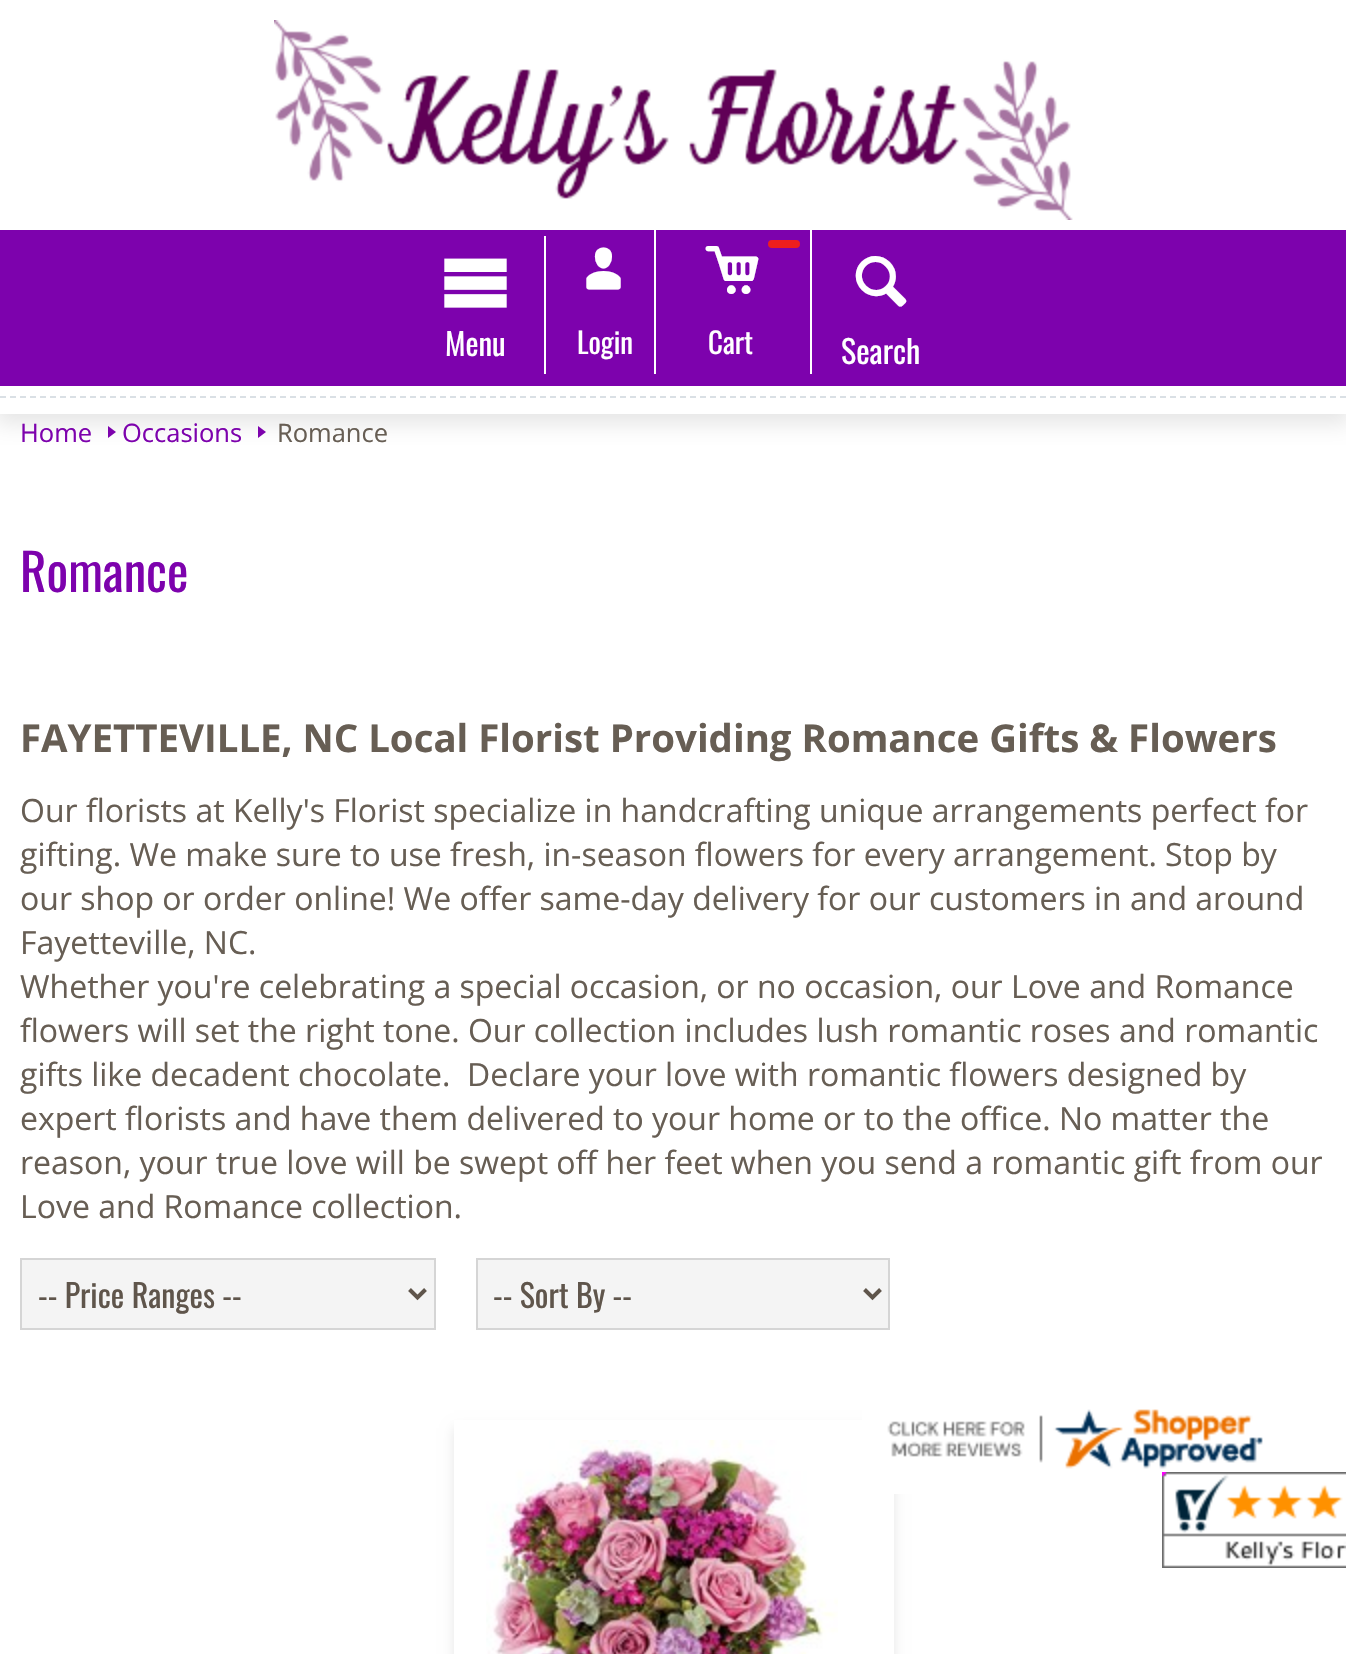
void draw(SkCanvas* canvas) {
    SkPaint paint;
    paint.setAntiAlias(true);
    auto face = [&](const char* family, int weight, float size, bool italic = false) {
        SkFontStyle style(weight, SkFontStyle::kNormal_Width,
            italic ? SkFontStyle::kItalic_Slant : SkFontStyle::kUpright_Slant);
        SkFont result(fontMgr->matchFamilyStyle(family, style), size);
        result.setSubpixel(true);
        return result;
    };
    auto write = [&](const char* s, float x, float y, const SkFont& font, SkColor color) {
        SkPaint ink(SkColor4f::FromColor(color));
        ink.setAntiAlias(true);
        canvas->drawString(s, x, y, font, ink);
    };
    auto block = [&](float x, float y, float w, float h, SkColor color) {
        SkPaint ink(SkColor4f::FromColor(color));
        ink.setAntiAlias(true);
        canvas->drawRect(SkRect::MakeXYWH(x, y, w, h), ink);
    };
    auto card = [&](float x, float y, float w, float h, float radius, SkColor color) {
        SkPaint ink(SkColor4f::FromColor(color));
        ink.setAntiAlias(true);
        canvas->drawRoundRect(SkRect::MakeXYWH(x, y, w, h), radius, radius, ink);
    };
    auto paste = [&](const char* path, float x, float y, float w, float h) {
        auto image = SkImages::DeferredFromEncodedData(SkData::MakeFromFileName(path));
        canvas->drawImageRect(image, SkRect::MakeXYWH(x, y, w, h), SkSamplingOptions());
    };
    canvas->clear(SK_ColorWHITE);
    canvas->save();
    canvas->clipRect(SkRect::MakeXYWH(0, 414, 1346, 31));
    paint.setColor(SkColorSetRGB(230, 230, 230));
    paint.setMaskFilter(SkMaskFilter::MakeBlur(kNormal_SkBlurStyle, 10));
    canvas->drawRect(SkRect::MakeXYWH(-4, 2, 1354, 422), paint);
    paint.setMaskFilter(nullptr);
    canvas->restore();
    paint.setStyle(SkPaint::kStroke_Style);
    paint.setStrokeWidth(2);
    paint.setColor(SkColorSetRGB(218, 224, 229));
    paint.setPathEffect(SkDashPathEffect::Make({{6, 4}}, 0));
    canvas->drawPath(SkPathBuilder().moveTo(0, 397).lineTo(1346, 397).detach(), paint);
    paint.setPathEffect(nullptr);
    paste("pic1.png", 274, 20, 799, 200);
    block(0, 230, 1346, 156, SkColorSetRGB(125, 2, 173));
    block(544, 236, 2, 138, SK_ColorWHITE);
    auto kFont1 = face("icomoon", 400, 71);
    write(":", 440, 312, kFont1, SK_ColorWHITE);
    auto kFont2 = face("Oswald", 400, 31);
    write("Menu", 445, 356, kFont2, SK_ColorWHITE);
    block(654, 230, 2, 144, SK_ColorWHITE);
    auto kFont3 = face("icomoon", 400, 58);
    write("&", 576, 294, kFont3, SK_ColorWHITE);
    auto kFont4 = face("Oswald", 400, 29);
    write("Login", 577, 354, kFont4, SK_ColorWHITE);
    block(810, 230, 2, 144, SK_ColorWHITE);
    paint.setStyle(SkPaint::kFill_Style);
    paint.setColor(SkColorSetRGB(238, 30, 30));
    canvas->drawRoundRect(SkRect::MakeXYWH(769, 241, 30, 6), 3, 3, paint);
    paint.setStyle(SkPaint::kStroke_Style);
    canvas->drawRoundRect(SkRect::MakeXYWH(769, 241, 30, 6), 3, 3, paint);
    write("#", 702, 294, kFont3, SK_ColorWHITE);
    write("Cart", 708, 354, kFont4, SK_ColorWHITE);
    auto kFont5 = face("icomoon", 400, 64);
    write("=", 849, 310, kFont5, SK_ColorWHITE);
    auto kFont6 = face("Oswald", 400, 32);
    write("Search", 841, 364, kFont6, SK_ColorWHITE);
    auto kFont7 = face("Open Sans", 400, 25.5f);
    write("Home", 20, 442, kFont7, SkColorSetRGB(125, 2, 173));
    paint.setStyle(SkPaint::kFill_Style);
    paint.setColor(SkColorSetRGB(125, 2, 173));
    canvas->drawPath(SkPathBuilder().moveTo(108, 438).lineTo(108, 426).lineTo(116, 432).close().detach(), paint);
    write("Occasions", 122, 442, kFont7, SkColorSetRGB(125, 2, 173));
    canvas->drawPath(SkPathBuilder().moveTo(258, 438).lineTo(258, 426).lineTo(266, 432).close().detach(), paint);
    write("Romance", 277, 442, kFont7, SkColorSetRGB(103, 94, 84));
    auto kFont8 = face("Oswald", 400, 51);
    write("Romance", 20, 592, kFont8, SkColorSetRGB(125, 2, 173));
    auto kFont9 = face("Open Sans", 700, 38.4f);
    write("FAYETTEVILLE, NC Local Florist Providing Romance Gifts & Flowers", 20, 752, kFont9, SkColorSetRGB(103, 94, 84));
    auto kFont10 = face("Open Sans", 400, 32);
    write("Our florists at Kelly's Florist specialize in handcrafting unique arrangements perfect for", 20, 822, kFont10, SkColorSetRGB(103, 94, 84));
    write("gifting. We make sure to use fresh, in-season flowers for every arrangement. Stop by", 20, 866, kFont10, SkColorSetRGB(103, 94, 84));
    write("our shop or order online! We offer same-day delivery for our customers in and around", 20, 910, kFont10, SkColorSetRGB(103, 94, 84));
    write("Fayetteville, NC.", 20, 954, kFont10, SkColorSetRGB(103, 94, 84));
    write("Whether you're celebrating a special occasion, or no occasion, our Love and Romance", 20, 998, kFont10, SkColorSetRGB(103, 94, 84));
    write("flowers will set the right tone. Our collection includes lush romantic roses and romantic", 20, 1042, kFont10, SkColorSetRGB(103, 94, 84));
    write("gifts like decadent chocolate.  Declare your love with romantic flowers designed by", 20, 1086, kFont10, SkColorSetRGB(103, 94, 84));
    write("expert florists and have them delivered to your home or to the office. No matter the", 20, 1130, kFont10, SkColorSetRGB(103, 94, 84));
    write("reason, your true love will be swept off her feet when you send a romantic gift from our", 20, 1174, kFont10, SkColorSetRGB(103, 94, 84));
    write("Love and Romance collection.", 20, 1218, kFont10, SkColorSetRGB(103, 94, 84));
    paint.setColor(SkColorSetRGB(244, 244, 244));
    canvas->drawRect(SkRect::MakeXYWH(21, 1259, 414, 70), paint);
    paint.setStyle(SkPaint::kStroke_Style);
    paint.setColor(SkColorSetRGB(213, 213, 213));
    canvas->drawRect(SkRect::MakeXYWH(21, 1259, 414, 70), paint);
    paint.setStrokeWidth(4);
    paint.setColor(SkColorSetRGB(95, 85, 75));
    canvas->drawPath(SkPathBuilder().moveTo(409.5f, 1289.5f).lineTo(417.5f, 1297.5f).lineTo(425.5f, 1289.5f).detach(), paint);
    write("-- Price Ranges --", 38, 1308, kFont6, SkColorSetRGB(95, 85, 75));
    paint.setStyle(SkPaint::kFill_Style);
    paint.setColor(SkColorSetRGB(244, 244, 244));
    canvas->drawRect(SkRect::MakeXYWH(477, 1259, 412, 70), paint);
    paint.setStyle(SkPaint::kStroke_Style);
    paint.setStrokeWidth(2);
    paint.setColor(SkColorSetRGB(213, 213, 213));
    canvas->drawRect(SkRect::MakeXYWH(477, 1259, 412, 70), paint);
    paint.setStrokeWidth(4);
    paint.setColor(SkColorSetRGB(95, 85, 75));
    canvas->drawPath(SkPathBuilder().moveTo(864.5f, 1289.5f).lineTo(872.5f, 1297.5f).lineTo(880.5f, 1289.5f).detach(), paint);
    write("-- Sort By --", 493, 1308, kFont6, SkColorSetRGB(95, 85, 75));
    canvas->save();
    canvas->clipPath(SkPathBuilder(SkPathFillType::kEvenOdd).moveTo(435, 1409).lineTo(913, 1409).lineTo(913, 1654).lineTo(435, 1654).close().moveTo(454, 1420).lineTo(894, 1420).lineTo(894, 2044).lineTo(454, 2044).close().detach(), true);
    paint.setStyle(SkPaint::kFill_Style);
    paint.setColor(SkColorSetRGB(230, 230, 230));
    paint.setMaskFilter(SkMaskFilter::MakeBlur(kNormal_SkBlurStyle, 6));
    canvas->drawRect(SkRect::MakeXYWH(454, 1428, 440, 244), paint);
    paint.setMaskFilter(nullptr);
    canvas->restore();
    paste("pic2.png", 486, 1440, 352, 214);
    card(862, 1382, 424, 112, 10, SK_ColorWHITE);
    paste("pic3.png", 887, 1409, 376, 60);
    paste("pic4.png", 1162, 1472, 184, 96);
}
